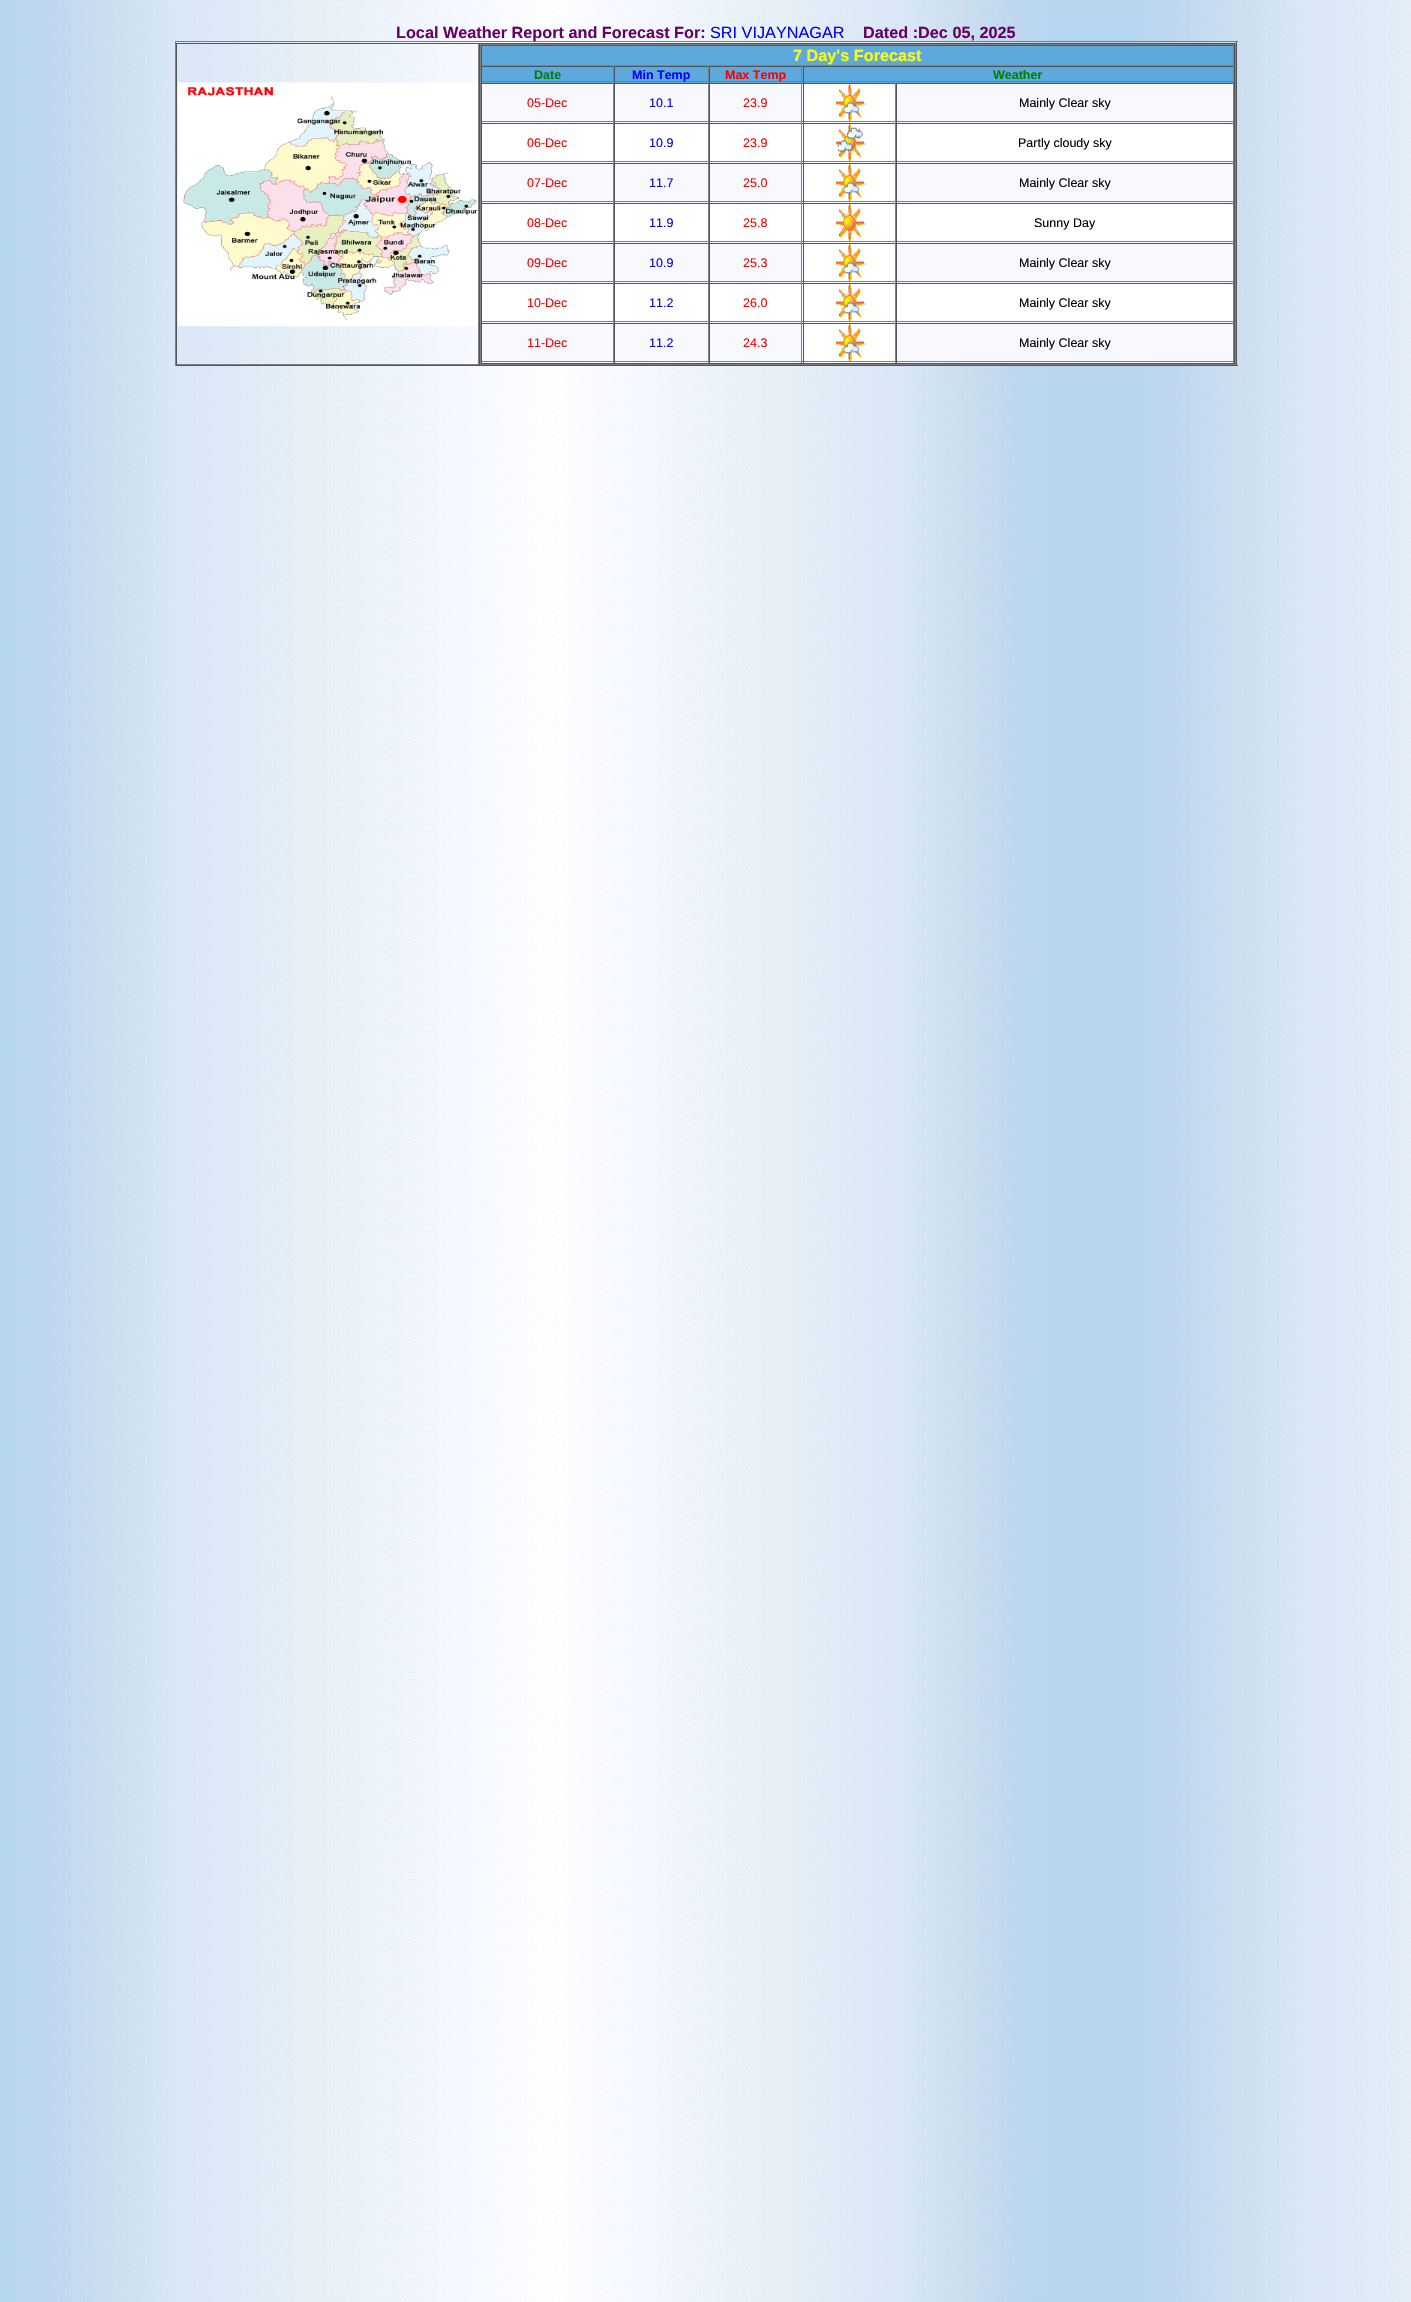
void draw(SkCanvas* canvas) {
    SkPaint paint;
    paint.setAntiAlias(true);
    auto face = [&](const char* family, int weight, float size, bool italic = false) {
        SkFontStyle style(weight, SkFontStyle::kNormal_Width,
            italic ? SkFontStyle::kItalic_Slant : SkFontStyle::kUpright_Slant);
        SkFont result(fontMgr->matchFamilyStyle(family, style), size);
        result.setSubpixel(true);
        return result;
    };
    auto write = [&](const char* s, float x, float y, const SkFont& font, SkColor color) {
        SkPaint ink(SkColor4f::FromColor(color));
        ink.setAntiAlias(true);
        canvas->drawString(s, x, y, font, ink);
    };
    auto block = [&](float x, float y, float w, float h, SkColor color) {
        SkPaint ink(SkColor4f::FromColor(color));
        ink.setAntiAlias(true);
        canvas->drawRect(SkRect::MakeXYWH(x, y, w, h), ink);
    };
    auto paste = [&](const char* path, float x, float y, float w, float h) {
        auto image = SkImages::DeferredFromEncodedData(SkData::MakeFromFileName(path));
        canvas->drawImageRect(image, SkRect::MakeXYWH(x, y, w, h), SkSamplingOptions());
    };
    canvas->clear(SK_ColorWHITE);
    paste("pic1.png", 0, 0, 1411, 2302);
    block(175, 41, 1063, 1, SkColorSetRGB(128, 128, 128));
    auto kFont1 = face("Liberation Sans", 700, 16.25f);
    write("Local Weather Report and Forecast For:", 396, 38, kFont1, SkColorSetRGB(102, 0, 102));
    auto kFont2 = face("Liberation Sans", 400, 16.25f);
    write("SRI VIJAYNAGAR", 710, 38, kFont2, SkColorSetRGB(0, 0, 255));
    write("Dated :Dec 05, 2025", 863, 38, kFont1, SkColorSetRGB(102, 0, 102));
    block(1236, 41, 1, 325, SkColorSetRGB(85, 85, 85));
    block(175, 365, 1063, 1, SkColorSetRGB(85, 85, 85));
    block(175, 41, 1, 325, SkColorSetRGB(128, 128, 128));
    block(176, 43, 1060, 1, SkColorSetRGB(85, 85, 85));
    block(478, 43, 1, 322, SkColorSetRGB(128, 128, 128));
    block(176, 364, 303, 1, SkColorSetRGB(128, 128, 128));
    block(176, 43, 1, 322, SkColorSetRGB(85, 85, 85));
    paste("pic2.png", 177, 82, 301, 245);
    block(1235, 43, 1, 322, SkColorSetRGB(128, 128, 128));
    block(479, 364, 757, 1, SkColorSetRGB(128, 128, 128));
    block(479, 43, 1, 322, SkColorSetRGB(85, 85, 85));
    block(480, 44, 755, 1, SkColorSetRGB(128, 128, 128));
    block(1234, 44, 1, 320, SkColorSetRGB(85, 85, 85));
    block(480, 363, 755, 1, SkColorSetRGB(85, 85, 85));
    block(480, 44, 1, 320, SkColorSetRGB(128, 128, 128));
    block(482, 46, 751, 19, SkColorSetRGB(93, 169, 221));
    block(481, 45, 753, 1, SkColorSetRGB(85, 85, 85));
    block(1233, 45, 1, 21, SkColorSetRGB(128, 128, 128));
    block(481, 65, 753, 1, SkColorSetRGB(128, 128, 128));
    block(481, 45, 1, 21, SkColorSetRGB(85, 85, 85));
    write("7 Day's Forecast", 793, 61, kFont1, SkColorSetRGB(255, 255, 0));
    block(482, 67, 131, 16, SkColorSetRGB(93, 169, 221));
    block(481, 66, 753, 1, SkColorSetRGB(85, 85, 85));
    block(613, 66, 1, 17, SkColorSetRGB(128, 128, 128));
    block(481, 81, 133, 1, SkColorSetRGB(128, 128, 128));
    block(481, 66, 1, 17, SkColorSetRGB(85, 85, 85));
    auto kFont3 = face("Liberation Sans", 700, 12.5f);
    write("Date", 534, 79, kFont3, SkColorSetRGB(0, 128, 0));
    block(615, 67, 93, 16, SkColorSetRGB(93, 169, 221));
    block(708, 66, 1, 17, SkColorSetRGB(128, 128, 128));
    block(614, 81, 95, 1, SkColorSetRGB(128, 128, 128));
    block(614, 66, 1, 17, SkColorSetRGB(85, 85, 85));
    write("Min Temp", 632, 79, kFont3, SkColorSetRGB(0, 0, 255));
    block(710, 67, 93, 16, SkColorSetRGB(93, 169, 221));
    block(801, 66, 1, 17, SkColorSetRGB(128, 128, 128));
    block(709, 81, 94, 1, SkColorSetRGB(128, 128, 128));
    block(709, 66, 1, 17, SkColorSetRGB(85, 85, 85));
    write("Max Temp", 725, 79, kFont3, SkColorSetRGB(255, 0, 0));
    block(804, 67, 429, 16, SkColorSetRGB(93, 169, 221));
    block(1233, 66, 1, 17, SkColorSetRGB(128, 128, 128));
    block(803, 81, 431, 1, SkColorSetRGB(128, 128, 128));
    block(803, 66, 1, 17, SkColorSetRGB(85, 85, 85));
    write("Weather", 993, 79, kFont3, SkColorSetRGB(0, 128, 0));
    block(482, 84, 751, 39, SkColorSetRGB(248, 248, 255));
    block(481, 83, 753, 1, SkColorSetRGB(85, 85, 85));
    block(613, 83, 1, 40, SkColorSetRGB(128, 128, 128));
    block(481, 121, 133, 1, SkColorSetRGB(128, 128, 128));
    block(481, 83, 1, 40, SkColorSetRGB(85, 85, 85));
    auto kFont4 = face("Liberation Sans", 400, 12.5f);
    write("05-Dec", 527, 107, kFont4, SkColorSetRGB(255, 0, 0));
    block(708, 83, 1, 40, SkColorSetRGB(128, 128, 128));
    block(614, 121, 95, 1, SkColorSetRGB(128, 128, 128));
    block(614, 83, 1, 40, SkColorSetRGB(85, 85, 85));
    write("10.1", 649, 107, kFont4, SkColorSetRGB(0, 0, 255));
    block(801, 83, 1, 40, SkColorSetRGB(128, 128, 128));
    block(709, 121, 94, 1, SkColorSetRGB(128, 128, 128));
    block(709, 83, 1, 40, SkColorSetRGB(85, 85, 85));
    write("23.9", 743, 107, kFont4, SkColorSetRGB(255, 0, 0));
    block(804, 84, 91, 39, SK_ColorWHITE);
    block(895, 83, 1, 40, SkColorSetRGB(128, 128, 128));
    block(803, 121, 93, 1, SkColorSetRGB(128, 128, 128));
    block(803, 83, 1, 40, SkColorSetRGB(85, 85, 85));
    paste("pic3.png", 836, 83, 30, 39);
    block(1233, 83, 1, 40, SkColorSetRGB(128, 128, 128));
    block(896, 121, 338, 1, SkColorSetRGB(128, 128, 128));
    block(896, 83, 1, 40, SkColorSetRGB(85, 85, 85));
    write("Mainly Clear sky", 1019, 107, kFont4, SK_ColorBLACK);
    block(482, 124, 751, 39, SK_ColorWHITE);
    block(481, 123, 753, 1, SkColorSetRGB(85, 85, 85));
    block(613, 123, 1, 40, SkColorSetRGB(128, 128, 128));
    block(481, 161, 133, 1, SkColorSetRGB(128, 128, 128));
    block(481, 123, 1, 40, SkColorSetRGB(85, 85, 85));
    write("06-Dec", 527, 147, kFont4, SkColorSetRGB(255, 0, 0));
    block(708, 123, 1, 40, SkColorSetRGB(128, 128, 128));
    block(614, 161, 95, 1, SkColorSetRGB(128, 128, 128));
    block(614, 123, 1, 40, SkColorSetRGB(85, 85, 85));
    write("10.9", 649, 147, kFont4, SkColorSetRGB(0, 0, 255));
    block(801, 123, 1, 40, SkColorSetRGB(128, 128, 128));
    block(709, 161, 94, 1, SkColorSetRGB(128, 128, 128));
    block(709, 123, 1, 40, SkColorSetRGB(85, 85, 85));
    write("23.9", 743, 147, kFont4, SkColorSetRGB(255, 0, 0));
    block(895, 123, 1, 40, SkColorSetRGB(128, 128, 128));
    block(803, 161, 93, 1, SkColorSetRGB(128, 128, 128));
    block(803, 123, 1, 40, SkColorSetRGB(85, 85, 85));
    paste("pic4.png", 836, 123, 30, 39);
    block(1233, 123, 1, 40, SkColorSetRGB(128, 128, 128));
    block(896, 161, 338, 1, SkColorSetRGB(128, 128, 128));
    block(896, 123, 1, 40, SkColorSetRGB(85, 85, 85));
    write("Partly cloudy sky", 1018, 147, kFont4, SK_ColorBLACK);
    block(482, 164, 751, 39, SkColorSetRGB(248, 248, 255));
    block(481, 163, 753, 1, SkColorSetRGB(85, 85, 85));
    block(613, 163, 1, 40, SkColorSetRGB(128, 128, 128));
    block(481, 201, 133, 1, SkColorSetRGB(128, 128, 128));
    block(481, 163, 1, 40, SkColorSetRGB(85, 85, 85));
    write("07-Dec", 527, 187, kFont4, SkColorSetRGB(255, 0, 0));
    block(708, 163, 1, 40, SkColorSetRGB(128, 128, 128));
    block(614, 201, 95, 1, SkColorSetRGB(128, 128, 128));
    block(614, 163, 1, 40, SkColorSetRGB(85, 85, 85));
    write("11.7", 649, 187, kFont4, SkColorSetRGB(0, 0, 255));
    block(801, 163, 1, 40, SkColorSetRGB(128, 128, 128));
    block(709, 201, 94, 1, SkColorSetRGB(128, 128, 128));
    block(709, 163, 1, 40, SkColorSetRGB(85, 85, 85));
    write("25.0", 743, 187, kFont4, SkColorSetRGB(255, 0, 0));
    block(804, 164, 91, 39, SK_ColorWHITE);
    block(895, 163, 1, 40, SkColorSetRGB(128, 128, 128));
    block(803, 201, 93, 1, SkColorSetRGB(128, 128, 128));
    block(803, 163, 1, 40, SkColorSetRGB(85, 85, 85));
    paste("pic3.png", 836, 163, 30, 39);
    block(1233, 163, 1, 40, SkColorSetRGB(128, 128, 128));
    block(896, 201, 338, 1, SkColorSetRGB(128, 128, 128));
    block(896, 163, 1, 40, SkColorSetRGB(85, 85, 85));
    write("Mainly Clear sky", 1019, 187, kFont4, SK_ColorBLACK);
    block(482, 204, 751, 39, SK_ColorWHITE);
    block(481, 203, 753, 1, SkColorSetRGB(85, 85, 85));
    block(613, 203, 1, 40, SkColorSetRGB(128, 128, 128));
    block(481, 241, 133, 1, SkColorSetRGB(128, 128, 128));
    block(481, 203, 1, 40, SkColorSetRGB(85, 85, 85));
    write("08-Dec", 527, 227, kFont4, SkColorSetRGB(255, 0, 0));
    block(708, 203, 1, 40, SkColorSetRGB(128, 128, 128));
    block(614, 241, 95, 1, SkColorSetRGB(128, 128, 128));
    block(614, 203, 1, 40, SkColorSetRGB(85, 85, 85));
    write("11.9", 649, 227, kFont4, SkColorSetRGB(0, 0, 255));
    block(801, 203, 1, 40, SkColorSetRGB(128, 128, 128));
    block(709, 241, 94, 1, SkColorSetRGB(128, 128, 128));
    block(709, 203, 1, 40, SkColorSetRGB(85, 85, 85));
    write("25.8", 743, 227, kFont4, SkColorSetRGB(255, 0, 0));
    block(895, 203, 1, 40, SkColorSetRGB(128, 128, 128));
    block(803, 241, 93, 1, SkColorSetRGB(128, 128, 128));
    block(803, 203, 1, 40, SkColorSetRGB(85, 85, 85));
    paste("pic5.png", 836, 203, 30, 39);
    block(1233, 203, 1, 40, SkColorSetRGB(128, 128, 128));
    block(896, 241, 338, 1, SkColorSetRGB(128, 128, 128));
    block(896, 203, 1, 40, SkColorSetRGB(85, 85, 85));
    write("Sunny Day", 1034, 227, kFont4, SK_ColorBLACK);
    block(482, 244, 751, 39, SkColorSetRGB(248, 248, 255));
    block(481, 243, 753, 1, SkColorSetRGB(85, 85, 85));
    block(613, 243, 1, 40, SkColorSetRGB(128, 128, 128));
    block(481, 281, 133, 1, SkColorSetRGB(128, 128, 128));
    block(481, 243, 1, 40, SkColorSetRGB(85, 85, 85));
    write("09-Dec", 527, 267, kFont4, SkColorSetRGB(255, 0, 0));
    block(708, 243, 1, 40, SkColorSetRGB(128, 128, 128));
    block(614, 281, 95, 1, SkColorSetRGB(128, 128, 128));
    block(614, 243, 1, 40, SkColorSetRGB(85, 85, 85));
    write("10.9", 649, 267, kFont4, SkColorSetRGB(0, 0, 255));
    block(801, 243, 1, 40, SkColorSetRGB(128, 128, 128));
    block(709, 281, 94, 1, SkColorSetRGB(128, 128, 128));
    block(709, 243, 1, 40, SkColorSetRGB(85, 85, 85));
    write("25.3", 743, 267, kFont4, SkColorSetRGB(255, 0, 0));
    block(804, 244, 91, 39, SK_ColorWHITE);
    block(895, 243, 1, 40, SkColorSetRGB(128, 128, 128));
    block(803, 281, 93, 1, SkColorSetRGB(128, 128, 128));
    block(803, 243, 1, 40, SkColorSetRGB(85, 85, 85));
    paste("pic3.png", 836, 243, 30, 39);
    block(1233, 243, 1, 40, SkColorSetRGB(128, 128, 128));
    block(896, 281, 338, 1, SkColorSetRGB(128, 128, 128));
    block(896, 243, 1, 40, SkColorSetRGB(85, 85, 85));
    write("Mainly Clear sky", 1019, 267, kFont4, SK_ColorBLACK);
    block(482, 284, 751, 39, SK_ColorWHITE);
    block(481, 283, 753, 1, SkColorSetRGB(85, 85, 85));
    block(613, 283, 1, 40, SkColorSetRGB(128, 128, 128));
    block(481, 321, 133, 1, SkColorSetRGB(128, 128, 128));
    block(481, 283, 1, 40, SkColorSetRGB(85, 85, 85));
    write("10-Dec", 527, 307, kFont4, SkColorSetRGB(255, 0, 0));
    block(708, 283, 1, 40, SkColorSetRGB(128, 128, 128));
    block(614, 321, 95, 1, SkColorSetRGB(128, 128, 128));
    block(614, 283, 1, 40, SkColorSetRGB(85, 85, 85));
    write("11.2", 649, 307, kFont4, SkColorSetRGB(0, 0, 255));
    block(801, 283, 1, 40, SkColorSetRGB(128, 128, 128));
    block(709, 321, 94, 1, SkColorSetRGB(128, 128, 128));
    block(709, 283, 1, 40, SkColorSetRGB(85, 85, 85));
    write("26.0", 743, 307, kFont4, SkColorSetRGB(255, 0, 0));
    block(895, 283, 1, 40, SkColorSetRGB(128, 128, 128));
    block(803, 321, 93, 1, SkColorSetRGB(128, 128, 128));
    block(803, 283, 1, 40, SkColorSetRGB(85, 85, 85));
    paste("pic3.png", 836, 283, 30, 39);
    block(1233, 283, 1, 40, SkColorSetRGB(128, 128, 128));
    block(896, 321, 338, 1, SkColorSetRGB(128, 128, 128));
    block(896, 283, 1, 40, SkColorSetRGB(85, 85, 85));
    write("Mainly Clear sky", 1019, 307, kFont4, SK_ColorBLACK);
    block(482, 324, 751, 39, SkColorSetRGB(248, 248, 255));
    block(481, 323, 753, 1, SkColorSetRGB(85, 85, 85));
    block(613, 323, 1, 40, SkColorSetRGB(128, 128, 128));
    block(481, 361, 133, 1, SkColorSetRGB(128, 128, 128));
    block(481, 323, 1, 40, SkColorSetRGB(85, 85, 85));
    write("11-Dec", 527, 347, kFont4, SkColorSetRGB(255, 0, 0));
    block(708, 323, 1, 40, SkColorSetRGB(128, 128, 128));
    block(614, 361, 95, 1, SkColorSetRGB(128, 128, 128));
    block(614, 323, 1, 40, SkColorSetRGB(85, 85, 85));
    write("11.2", 649, 347, kFont4, SkColorSetRGB(0, 0, 255));
    block(801, 323, 1, 40, SkColorSetRGB(128, 128, 128));
    block(709, 361, 94, 1, SkColorSetRGB(128, 128, 128));
    block(709, 323, 1, 40, SkColorSetRGB(85, 85, 85));
    write("24.3", 743, 347, kFont4, SkColorSetRGB(255, 0, 0));
    block(804, 324, 91, 39, SK_ColorWHITE);
    block(895, 323, 1, 40, SkColorSetRGB(128, 128, 128));
    block(803, 361, 93, 1, SkColorSetRGB(128, 128, 128));
    block(803, 323, 1, 40, SkColorSetRGB(85, 85, 85));
    paste("pic3.png", 836, 323, 30, 39);
    block(1233, 323, 1, 40, SkColorSetRGB(128, 128, 128));
    block(896, 361, 338, 1, SkColorSetRGB(128, 128, 128));
    block(896, 323, 1, 40, SkColorSetRGB(85, 85, 85));
    write("Mainly Clear sky", 1019, 347, kFont4, SK_ColorBLACK);
}
